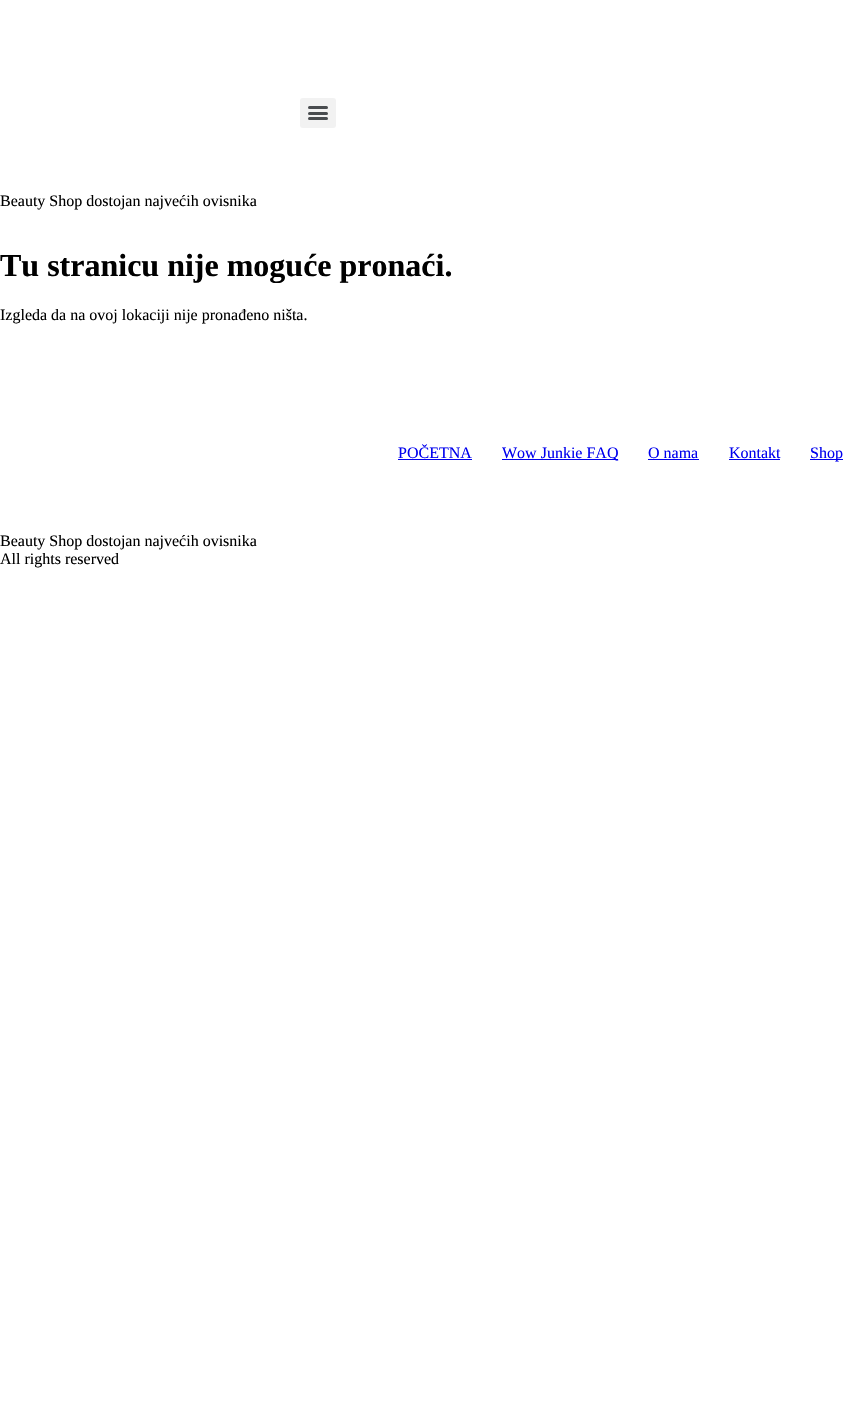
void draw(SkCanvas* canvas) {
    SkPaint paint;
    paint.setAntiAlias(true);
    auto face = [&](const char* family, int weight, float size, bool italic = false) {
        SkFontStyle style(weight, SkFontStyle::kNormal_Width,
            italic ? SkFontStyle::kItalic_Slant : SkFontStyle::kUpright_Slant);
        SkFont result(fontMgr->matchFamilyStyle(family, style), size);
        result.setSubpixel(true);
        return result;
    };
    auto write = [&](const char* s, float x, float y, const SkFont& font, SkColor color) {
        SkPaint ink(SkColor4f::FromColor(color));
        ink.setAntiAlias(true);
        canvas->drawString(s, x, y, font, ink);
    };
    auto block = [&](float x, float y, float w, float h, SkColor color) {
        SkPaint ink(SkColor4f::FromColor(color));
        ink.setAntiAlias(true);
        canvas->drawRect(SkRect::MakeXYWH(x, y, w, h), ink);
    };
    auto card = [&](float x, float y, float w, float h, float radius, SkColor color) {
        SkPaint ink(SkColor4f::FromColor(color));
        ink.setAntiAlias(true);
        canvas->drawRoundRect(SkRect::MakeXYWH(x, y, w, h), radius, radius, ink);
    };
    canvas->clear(SK_ColorWHITE);
    card(300, 98, 36, 30, 3, SkColorSetRGB(242, 242, 242));
    card(308, 112, 20, 3, 1.5f, SkColorSetRGB(73, 76, 79));
    card(308, 106, 20, 3, 1.5f, SkColorSetRGB(73, 76, 79));
    card(308, 117, 20, 3, 1.5f, SkColorSetRGB(73, 76, 79));
    auto kFont1 = face("Liberation Serif", 400, 16);
    write("Beauty Shop dostojan najvećih ovisnika", 0, 206, kFont1, SK_ColorBLACK);
    auto kFont2 = face("Liberation Serif", 700, 32);
    write("Tu stranicu nije moguće pronaći.", 0, 276, kFont2, SK_ColorBLACK);
    write("Izgleda da na ovoj lokaciji nije pronađeno ništa.", 0, 320, kFont1, SK_ColorBLACK);
    write("POČETNA", 398, 458, kFont1, SkColorSetRGB(0, 0, 238));
    block(398, 459, 74, 1, SkColorSetRGB(0, 0, 238));
    block(502, 459, 116, 1, SkColorSetRGB(0, 0, 238));
    write("Wow Junkie FAQ", 502, 458, kFont1, SkColorSetRGB(0, 0, 238));
    write("O nama", 648, 458, kFont1, SkColorSetRGB(0, 0, 238));
    block(648, 459, 51, 1, SkColorSetRGB(0, 0, 238));
    write("Kontakt", 729, 458, kFont1, SkColorSetRGB(0, 0, 238));
    block(729, 459, 51, 1, SkColorSetRGB(0, 0, 238));
    block(810, 459, 33, 1, SkColorSetRGB(0, 0, 238));
    write("Shop", 810, 458, kFont1, SkColorSetRGB(0, 0, 238));
    write("Beauty Shop dostojan najvećih ovisnika", 0, 546, kFont1, SK_ColorBLACK);
    write("All rights reserved", 0, 564, kFont1, SK_ColorBLACK);
}
